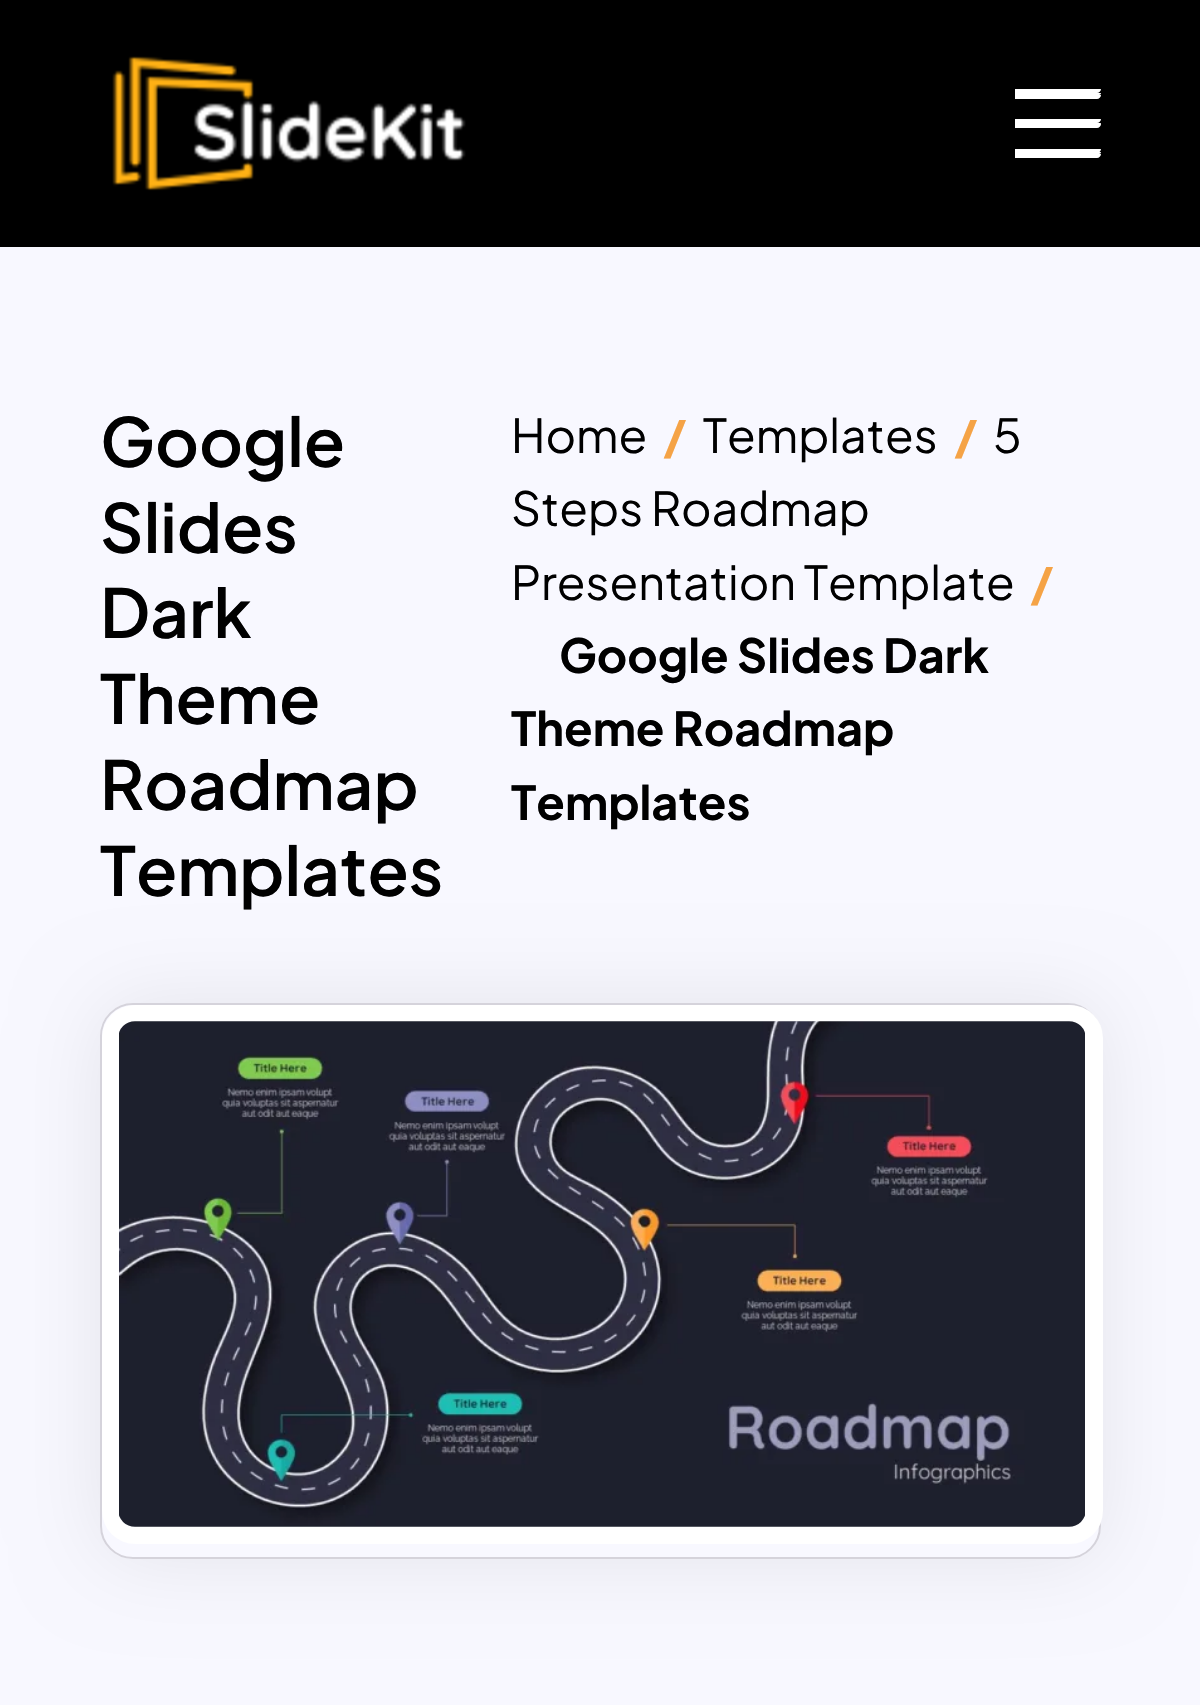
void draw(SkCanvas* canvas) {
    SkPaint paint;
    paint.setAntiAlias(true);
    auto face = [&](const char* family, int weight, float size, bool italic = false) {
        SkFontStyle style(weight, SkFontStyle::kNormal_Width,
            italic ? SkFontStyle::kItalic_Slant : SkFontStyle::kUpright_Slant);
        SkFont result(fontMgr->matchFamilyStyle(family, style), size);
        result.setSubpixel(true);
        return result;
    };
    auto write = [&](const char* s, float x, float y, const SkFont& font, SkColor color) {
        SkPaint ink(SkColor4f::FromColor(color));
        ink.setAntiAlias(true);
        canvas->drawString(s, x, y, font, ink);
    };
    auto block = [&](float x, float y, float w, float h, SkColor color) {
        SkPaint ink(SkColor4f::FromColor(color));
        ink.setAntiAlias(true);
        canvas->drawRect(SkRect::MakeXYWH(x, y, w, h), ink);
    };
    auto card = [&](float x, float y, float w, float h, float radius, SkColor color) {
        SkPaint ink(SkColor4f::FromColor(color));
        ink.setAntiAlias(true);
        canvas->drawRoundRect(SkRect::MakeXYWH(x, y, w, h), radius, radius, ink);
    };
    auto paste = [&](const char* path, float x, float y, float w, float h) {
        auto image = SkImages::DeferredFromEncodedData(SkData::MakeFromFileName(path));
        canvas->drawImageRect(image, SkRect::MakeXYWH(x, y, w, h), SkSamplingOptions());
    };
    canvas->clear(SkColorSetRGB(248, 248, 255));
    block(0, 0, 1200, 247, SK_ColorBLACK);
    paste("pic1.png", 112, 56, 354, 135);
    paint.setColor(SK_ColorWHITE);
    canvas->drawPath(SkPathBuilder().moveTo(1015, 119).lineTo(1101, 119).cubicTo(1101, 121, 1099, 123, 1097, 123).lineTo(1015, 123).close().detach(), paint);
    canvas->drawPath(SkPathBuilder().moveTo(1015, 89).lineTo(1101, 89).cubicTo(1101, 91, 1099, 93, 1097, 93).lineTo(1015, 93).close().detach(), paint);
    canvas->drawPath(SkPathBuilder().moveTo(1015, 149).lineTo(1101, 149).cubicTo(1101, 151, 1099, 153, 1097, 153).lineTo(1015, 153).close().detach(), paint);
    canvas->drawPath(SkPathBuilder().moveTo(1015, 123).lineTo(1101, 123).cubicTo(1101, 124, 1100, 125, 1099, 125).lineTo(1015, 125).close().detach(), paint);
    canvas->drawPath(SkPathBuilder().moveTo(1015, 93).lineTo(1101, 93).cubicTo(1101, 94, 1100, 95, 1099, 95).lineTo(1015, 95).close().detach(), paint);
    canvas->drawPath(SkPathBuilder().moveTo(1015, 152).lineTo(1101, 152).cubicTo(1101, 153, 1100, 154, 1099, 154).lineTo(1015, 154).close().detach(), paint);
    canvas->drawPath(SkPathBuilder().moveTo(1015, 124).lineTo(1101, 124).cubicTo(1101, 126, 1099, 128, 1097, 128).lineTo(1015, 128).close().detach(), paint);
    canvas->drawPath(SkPathBuilder().moveTo(1015, 95).lineTo(1101, 95).cubicTo(1101, 97, 1099, 99, 1097, 99).lineTo(1015, 99).close().detach(), paint);
    canvas->drawPath(SkPathBuilder().moveTo(1015, 154).lineTo(1101, 154).cubicTo(1101, 156, 1099, 158, 1097, 158).lineTo(1015, 158).close().detach(), paint);
    auto kFont1 = face("Plus Jakarta Sans", 600, 67.5f);
    write("Google", 100, 467, kFont1, SK_ColorBLACK);
    write("Slides", 100, 553, kFont1, SK_ColorBLACK);
    write("Dark", 100, 638, kFont1, SK_ColorBLACK);
    write("Theme", 100, 724, kFont1, SK_ColorBLACK);
    write("Roadmap", 100, 810, kFont1, SK_ColorBLACK);
    write("Templates", 100, 896, kFont1, SK_ColorBLACK);
    auto kFont2 = face("Plus Jakarta Sans", 400, 46.75f);
    write("Templates", 703, 453, kFont2, SK_ColorBLACK);
    auto kFont3 = face("Plus Jakarta Sans", 700, 46.75f);
    write("/", 954, 453, kFont3, SkColorSetRGB(245, 163, 70));
    write("5", 993, 453, kFont2, SK_ColorBLACK);
    write("Steps Roadmap", 511, 526, kFont2, SK_ColorBLACK);
    write("Presentation Template", 511, 600, kFont2, SK_ColorBLACK);
    write("/", 1030, 600, kFont3, SkColorSetRGB(245, 163, 70));
    write("Home", 511, 453, kFont2, SK_ColorBLACK);
    write("/", 663, 453, kFont3, SkColorSetRGB(245, 163, 70));
    write("Google Slides Dark", 559, 673, kFont3, SK_ColorBLACK);
    write("Theme Roadmap", 511, 746, kFont3, SK_ColorBLACK);
    write("Templates", 511, 820, kFont3, SK_ColorBLACK);
    canvas->save();
    canvas->clipPath(SkPathBuilder(SkPathFillType::kEvenOdd).moveTo(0, 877).lineTo(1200, 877).lineTo(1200, 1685).lineTo(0, 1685).close().moveTo(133, 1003).lineTo(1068, 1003).cubicTo(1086, 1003, 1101, 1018, 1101, 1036).lineTo(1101, 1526).cubicTo(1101, 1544, 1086, 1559, 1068, 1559).lineTo(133, 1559).cubicTo(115, 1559, 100, 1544, 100, 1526).lineTo(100, 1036).cubicTo(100, 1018, 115, 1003, 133, 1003).close().detach(), true);
    paint.setColor(SkColorSetARGB(20, 0, 0, 0));
    paint.setMaskFilter(SkMaskFilter::MakeBlur(kNormal_SkBlurStyle, 41.5f));
    canvas->drawRoundRect(SkRect::MakeXYWH(100, 1003, 1001, 556), 33, 33, paint);
    paint.setMaskFilter(nullptr);
    canvas->restore();
    paint.setStyle(SkPaint::kStroke_Style);
    paint.setStrokeWidth(2);
    paint.setColor(SkColorSetRGB(213, 211, 219));
    canvas->drawRoundRect(SkRect::MakeXYWH(101, 1004, 999, 554), 32, 32, paint);
    card(102, 1005, 1001, 539, 33, SK_ColorWHITE);
    paste("pic2.png", 119, 1021, 966, 506);
}
